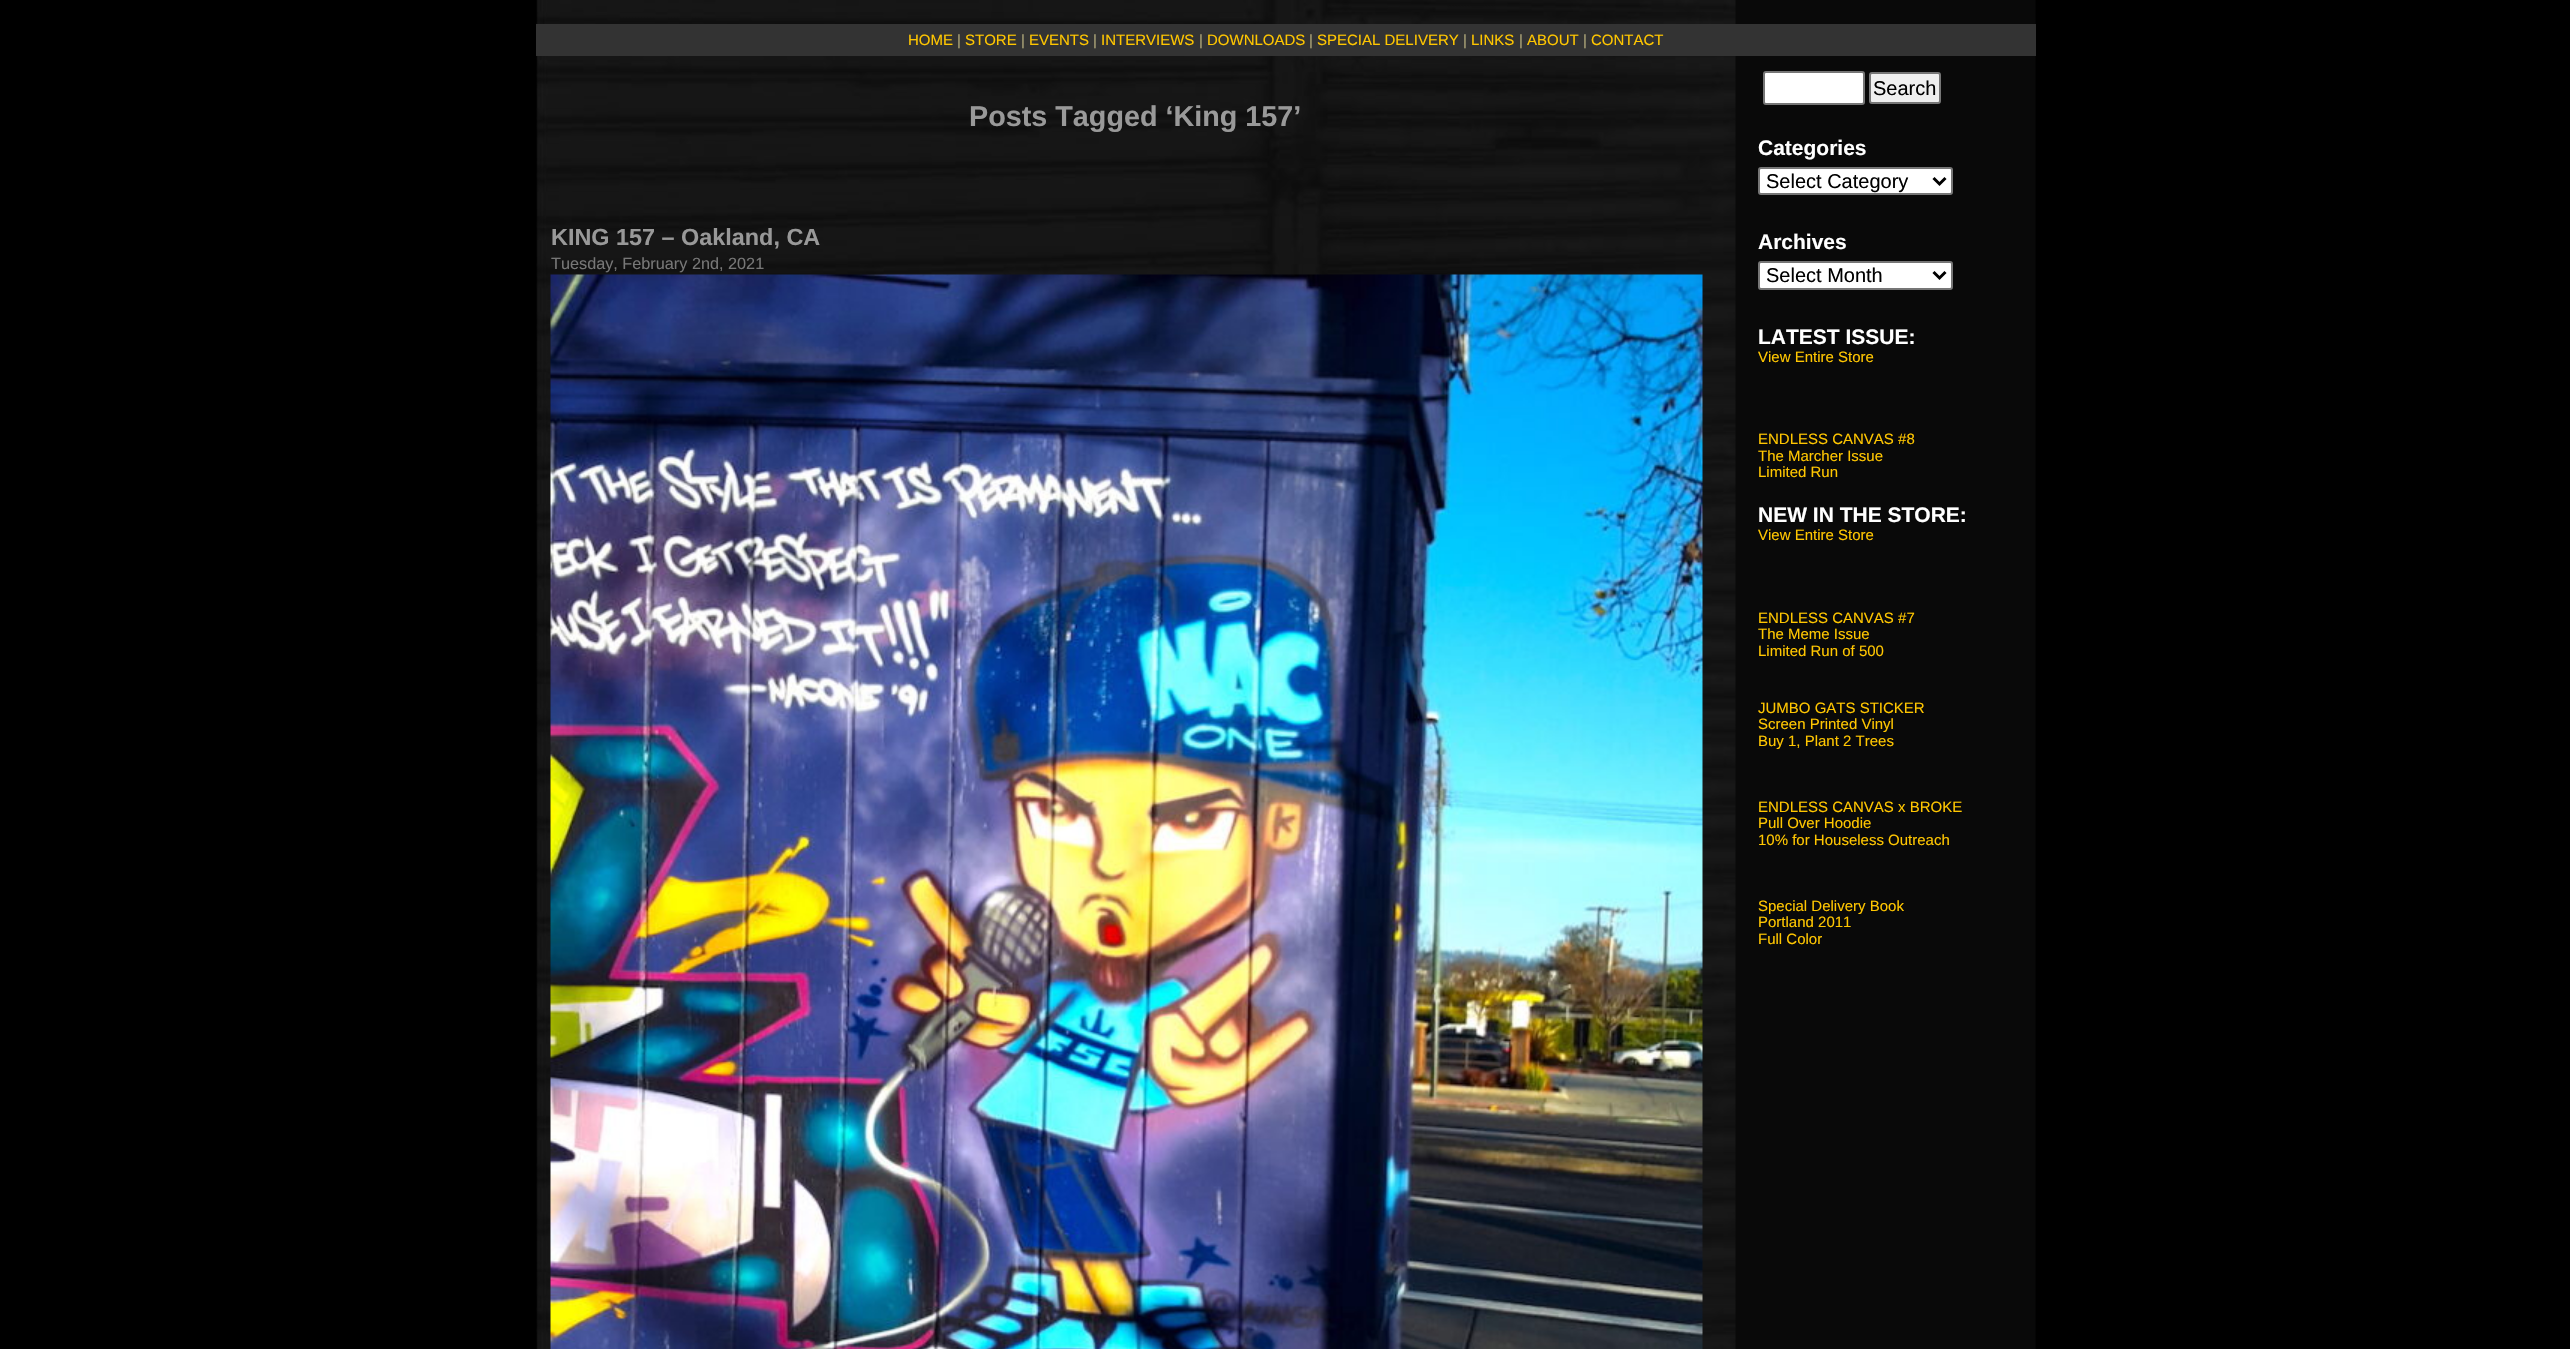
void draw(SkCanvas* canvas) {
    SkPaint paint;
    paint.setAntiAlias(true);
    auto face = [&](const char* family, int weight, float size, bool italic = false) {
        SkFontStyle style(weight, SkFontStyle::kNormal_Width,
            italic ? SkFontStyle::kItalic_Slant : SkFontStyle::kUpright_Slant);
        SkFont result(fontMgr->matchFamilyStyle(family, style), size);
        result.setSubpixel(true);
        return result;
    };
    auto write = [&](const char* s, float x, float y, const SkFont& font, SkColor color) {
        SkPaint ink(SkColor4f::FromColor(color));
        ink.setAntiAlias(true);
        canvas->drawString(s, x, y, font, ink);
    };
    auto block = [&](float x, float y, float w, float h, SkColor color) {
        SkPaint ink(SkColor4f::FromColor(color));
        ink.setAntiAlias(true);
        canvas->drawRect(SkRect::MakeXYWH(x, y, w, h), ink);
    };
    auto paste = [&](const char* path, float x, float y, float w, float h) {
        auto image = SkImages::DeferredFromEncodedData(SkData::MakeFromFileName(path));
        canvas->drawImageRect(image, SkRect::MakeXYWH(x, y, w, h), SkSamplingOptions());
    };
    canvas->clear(SK_ColorBLACK);
    paste("pic1.png", 536, 0, 1500, 1349);
    block(536, 24, 1500, 32, SkColorSetRGB(51, 51, 51));
    auto kFont1 = face("Liberation Sans", 400, 15);
    write("HOME", 908, 45, kFont1, SkColorSetRGB(255, 198, 0));
    write("|", 957, 45, kFont1, SkColorSetRGB(174, 166, 121));
    write("STORE", 965, 45, kFont1, SkColorSetRGB(255, 198, 0));
    write("|", 1021, 45, kFont1, SkColorSetRGB(174, 166, 121));
    write("EVENTS", 1029, 45, kFont1, SkColorSetRGB(255, 198, 0));
    write("|", 1093, 45, kFont1, SkColorSetRGB(174, 166, 121));
    write("INTERVIEWS", 1101, 45, kFont1, SkColorSetRGB(255, 198, 0));
    write("|", 1199, 45, kFont1, SkColorSetRGB(174, 166, 121));
    write("DOWNLOADS", 1207, 45, kFont1, SkColorSetRGB(255, 198, 0));
    write("|", 1309, 45, kFont1, SkColorSetRGB(174, 166, 121));
    write("SPECIAL DELIVERY", 1317, 45, kFont1, SkColorSetRGB(255, 198, 0));
    write("|", 1463, 45, kFont1, SkColorSetRGB(174, 166, 121));
    write("LINKS", 1471, 45, kFont1, SkColorSetRGB(255, 198, 0));
    write("|", 1519, 45, kFont1, SkColorSetRGB(174, 166, 121));
    write("ABOUT", 1527, 45, kFont1, SkColorSetRGB(255, 198, 0));
    write("|", 1583, 45, kFont1, SkColorSetRGB(174, 166, 121));
    write("CONTACT", 1591, 45, kFont1, SkColorSetRGB(255, 198, 0));
    auto kFont2 = face("Liberation Sans", 700, 28.75f);
    write("Posts Tagged ‘King 157’", 969, 126, kFont2, SkColorSetRGB(153, 153, 153));
    auto kFont3 = face("Liberation Sans", 700, 23.4f);
    write("KING 157 – Oakland, CA", 551, 245, kFont3, SkColorSetRGB(153, 153, 153));
    auto kFont4 = face("Liberation Sans", 400, 16.25f);
    write("Tuesday, February 2nd, 2021", 551, 269, kFont4, SkColorSetRGB(119, 119, 119));
    paste("pic2.png", 550, 274, 1153, 1075);
    paint.setColor(SK_ColorWHITE);
    canvas->drawRoundRect(SkRect::MakeXYWH(1764, 72, 100, 32), 2, 2, paint);
    paint.setStyle(SkPaint::kStroke_Style);
    paint.setStrokeWidth(2);
    paint.setColor(SkColorSetRGB(118, 118, 118));
    canvas->drawRoundRect(SkRect::MakeXYWH(1764, 72, 100, 32), 2, 2, paint);
    paint.setStyle(SkPaint::kFill_Style);
    paint.setColor(SkColorSetRGB(239, 239, 239));
    canvas->drawRoundRect(SkRect::MakeXYWH(1870, 73, 70, 30), 2, 2, paint);
    paint.setStyle(SkPaint::kStroke_Style);
    paint.setColor(SkColorSetRGB(118, 118, 118));
    canvas->drawRoundRect(SkRect::MakeXYWH(1870, 73, 70, 30), 2, 2, paint);
    auto kFont5 = face("Liberation Sans", 400, 20);
    write("Search", 1873, 95, kFont5, SK_ColorBLACK);
    auto kFont6 = face("Liberation Sans", 700, 21);
    write("Categories", 1758, 155, kFont6, SK_ColorWHITE);
    paint.setStyle(SkPaint::kFill_Style);
    paint.setColor(SK_ColorWHITE);
    canvas->drawRoundRect(SkRect::MakeXYWH(1759, 168, 193, 26), 2, 2, paint);
    paint.setStyle(SkPaint::kStroke_Style);
    paint.setColor(SkColorSetRGB(118, 118, 118));
    canvas->drawRoundRect(SkRect::MakeXYWH(1759, 168, 193, 26), 2, 2, paint);
    paint.setStrokeWidth(3);
    paint.setColor(SK_ColorBLACK);
    canvas->drawPath(SkPathBuilder().moveTo(1933.5f, 178).lineTo(1939.5f, 184).lineTo(1945.5f, 178).detach(), paint);
    write("Select Category", 1766, 188, kFont5, SK_ColorBLACK);
    write("Archives", 1758, 249, kFont6, SK_ColorWHITE);
    paint.setStyle(SkPaint::kFill_Style);
    paint.setColor(SK_ColorWHITE);
    canvas->drawRoundRect(SkRect::MakeXYWH(1759, 262, 193, 27), 2, 2, paint);
    paint.setStyle(SkPaint::kStroke_Style);
    paint.setStrokeWidth(2);
    paint.setColor(SkColorSetRGB(118, 118, 118));
    canvas->drawRoundRect(SkRect::MakeXYWH(1759, 262, 193, 27), 2, 2, paint);
    paint.setStrokeWidth(3);
    paint.setColor(SK_ColorBLACK);
    canvas->drawPath(SkPathBuilder().moveTo(1933.5f, 272).lineTo(1939.5f, 278).lineTo(1945.5f, 272).detach(), paint);
    write("Select Month", 1766, 282, kFont5, SK_ColorBLACK);
    write("LATEST ISSUE:", 1758, 344, kFont6, SK_ColorWHITE);
    write("View Entire Store", 1758, 362, kFont1, SkColorSetRGB(255, 198, 0));
    write("ENDLESS CANVAS #8", 1758, 444, kFont1, SkColorSetRGB(255, 198, 0));
    write("The Marcher Issue", 1758, 461, kFont1, SkColorSetRGB(255, 198, 0));
    write("Limited Run", 1758, 477, kFont1, SkColorSetRGB(255, 198, 0));
    write("NEW IN THE STORE:", 1758, 522, kFont6, SK_ColorWHITE);
    write("View Entire Store", 1758, 540, kFont1, SkColorSetRGB(255, 198, 0));
    write("ENDLESS CANVAS #7", 1758, 623, kFont1, SkColorSetRGB(255, 198, 0));
    write("The Meme Issue", 1758, 639, kFont1, SkColorSetRGB(255, 198, 0));
    write("Limited Run of 500", 1758, 656, kFont1, SkColorSetRGB(255, 198, 0));
    write("JUMBO GATS STICKER", 1758, 713, kFont1, SkColorSetRGB(255, 198, 0));
    write("Screen Printed Vinyl", 1758, 729, kFont1, SkColorSetRGB(255, 198, 0));
    write("Buy 1, Plant 2 Trees", 1758, 746, kFont1, SkColorSetRGB(255, 198, 0));
    write("ENDLESS CANVAS x BROKE", 1758, 812, kFont1, SkColorSetRGB(255, 198, 0));
    write("Pull Over Hoodie", 1758, 828, kFont1, SkColorSetRGB(255, 198, 0));
    write("10% for Houseless Outreach", 1758, 845, kFont1, SkColorSetRGB(255, 198, 0));
    write("Special Delivery Book", 1758, 911, kFont1, SkColorSetRGB(255, 198, 0));
    write("Portland 2011", 1758, 927, kFont1, SkColorSetRGB(255, 198, 0));
    write("Full Color", 1758, 944, kFont1, SkColorSetRGB(255, 198, 0));
}
